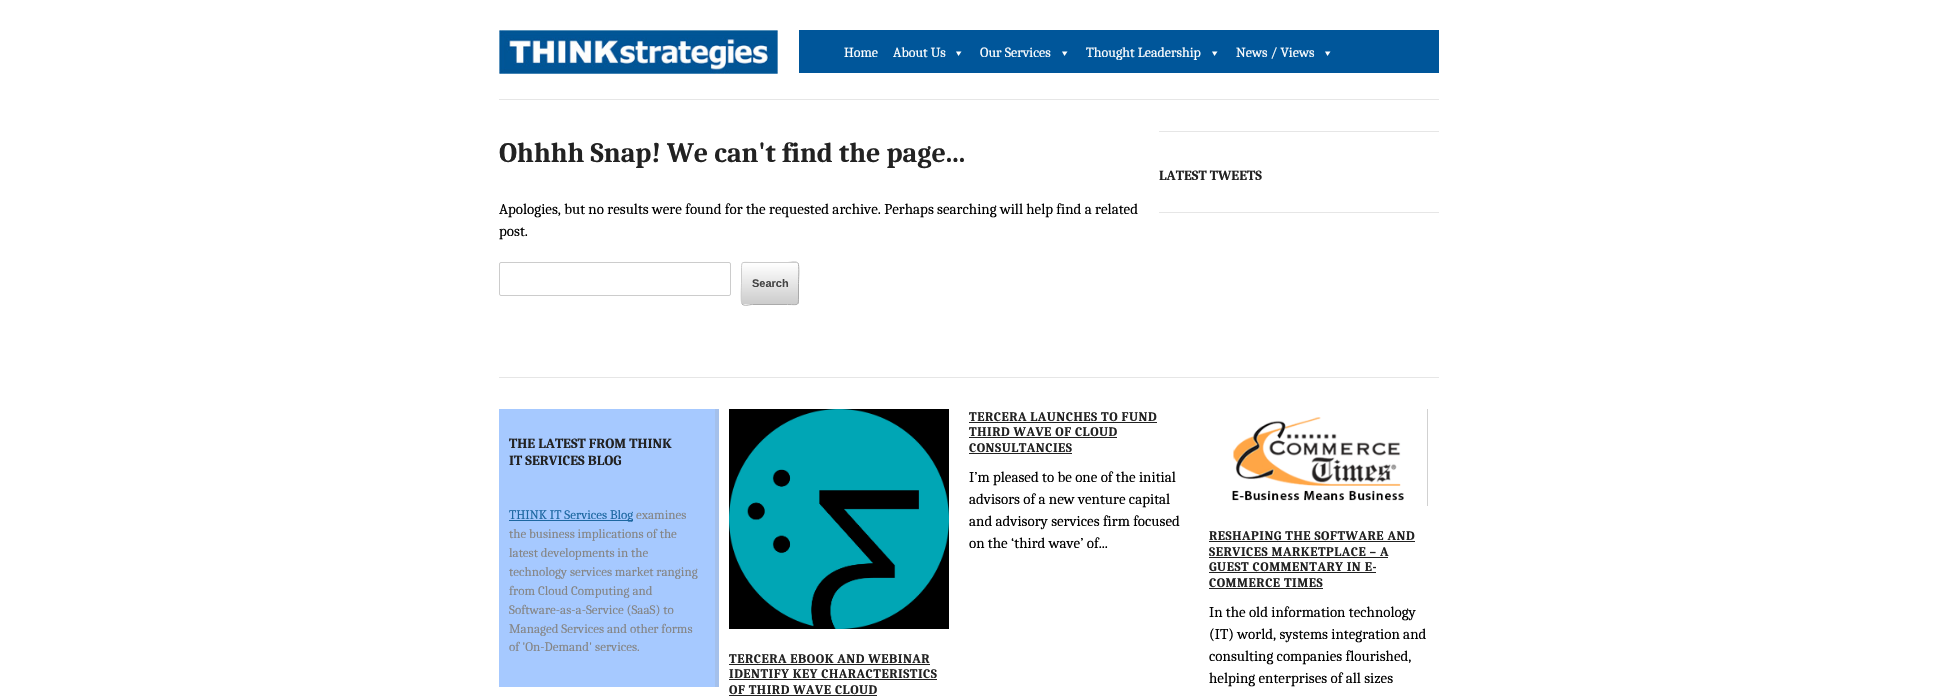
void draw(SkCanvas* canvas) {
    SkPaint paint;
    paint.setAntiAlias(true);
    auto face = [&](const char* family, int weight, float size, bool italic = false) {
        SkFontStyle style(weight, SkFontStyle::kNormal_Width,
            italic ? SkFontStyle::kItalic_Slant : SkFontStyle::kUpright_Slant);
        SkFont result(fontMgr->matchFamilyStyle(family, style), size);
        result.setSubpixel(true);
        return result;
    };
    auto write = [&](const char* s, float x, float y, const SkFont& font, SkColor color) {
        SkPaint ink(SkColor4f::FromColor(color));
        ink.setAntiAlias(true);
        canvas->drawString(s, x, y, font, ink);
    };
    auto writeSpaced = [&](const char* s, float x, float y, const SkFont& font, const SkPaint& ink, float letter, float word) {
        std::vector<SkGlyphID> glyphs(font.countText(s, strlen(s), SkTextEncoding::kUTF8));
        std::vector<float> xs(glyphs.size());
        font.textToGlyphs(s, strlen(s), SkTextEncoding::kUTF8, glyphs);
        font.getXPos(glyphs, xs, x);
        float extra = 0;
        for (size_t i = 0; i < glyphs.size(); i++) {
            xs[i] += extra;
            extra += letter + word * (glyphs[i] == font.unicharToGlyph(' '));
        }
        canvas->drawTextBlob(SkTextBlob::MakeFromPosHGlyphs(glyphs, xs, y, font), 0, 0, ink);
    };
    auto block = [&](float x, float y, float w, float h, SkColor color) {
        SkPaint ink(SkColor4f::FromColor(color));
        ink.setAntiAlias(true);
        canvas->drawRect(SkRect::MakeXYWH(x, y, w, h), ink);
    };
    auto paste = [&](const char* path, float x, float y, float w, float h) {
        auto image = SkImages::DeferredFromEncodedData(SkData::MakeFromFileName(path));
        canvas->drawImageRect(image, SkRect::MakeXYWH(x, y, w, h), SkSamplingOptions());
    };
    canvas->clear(SK_ColorWHITE);
    paste("pic1.png", 499, 30, 279, 44);
    block(799, 30, 640, 43, SkColorSetRGB(0, 86, 154));
    auto kFont1 = face("Caladea", 400, 14);
    write("Home", 844, 57, kFont1, SK_ColorWHITE);
    write("About Us", 893, 57, kFont1, SK_ColorWHITE);
    paint.setColor(SK_ColorWHITE);
    canvas->drawPath(SkPathBuilder().moveTo(961.5f, 51.5f).lineTo(958.5f, 56).lineTo(956, 51.5f).close().detach(), paint);
    write("Our Services", 980, 57, kFont1, SK_ColorWHITE);
    canvas->drawPath(SkPathBuilder().moveTo(1067.5f, 51.5f).lineTo(1064.5f, 56).lineTo(1062, 51.5f).close().detach(), paint);
    write("Thought Leadership", 1086, 57, kFont1, SK_ColorWHITE);
    canvas->drawPath(SkPathBuilder().moveTo(1217.5f, 51.5f).lineTo(1214.5f, 56).lineTo(1212, 51.5f).close().detach(), paint);
    write("News / Views", 1236, 57, kFont1, SK_ColorWHITE);
    canvas->drawPath(SkPathBuilder().moveTo(1330.5f, 51.5f).lineTo(1327.5f, 56).lineTo(1325, 51.5f).close().detach(), paint);
    block(499, 99, 940, 1, SkColorSetRGB(230, 230, 230));
    auto kFont2 = face("Caladea", 700, 28);
    write("Ohhhh Snap! We can't find the page...", 499, 162, kFont2, SkColorSetRGB(34, 34, 34));
    auto kFont3 = face("Caladea", 400, 15);
    write("Apologies, but no results were found for the requested archive. Perhaps searching will help find a related", 499, 214, kFont3, SK_ColorBLACK);
    write("post.", 499, 236, kFont3, SK_ColorBLACK);
    paint.setStyle(SkPaint::kStroke_Style);
    paint.setStrokeWidth(1);
    paint.setColor(SkColorSetRGB(204, 204, 204));
    canvas->drawRoundRect(SkRect::MakeXYWH(499.5f, 262.5f, 231, 33), 1.5f, 1.5f, paint);
    canvas->save();
    canvas->clipPath(SkPathBuilder().moveTo(744, 262).lineTo(796, 262).cubicTo(797.5f, 262, 799, 263.5f, 799, 265).lineTo(799, 302).cubicTo(799, 303.5f, 797.5f, 305, 796, 305).lineTo(744, 305).cubicTo(742.5f, 305, 741, 303.5f, 741, 302).lineTo(741, 265).cubicTo(741, 263.5f, 742.5f, 262, 744, 262).close().detach(), true);
    paint.setStyle(SkPaint::kFill_Style);
    {
        const SkColor colors[] = {SK_ColorWHITE, SkColorSetRGB(204, 204, 204)};
        const float stops[] = {0, 1};
        const SkPoint ends[] = {{770, 222}, {770, 263}};
        paint.setShader(SkGradientShader::MakeLinear(ends, colors, stops, 2, SkTileMode::kClamp));
        paint.setAlpha(255);
    }
    canvas->drawRect(SkRect::MakeXYWH(741, 262, 58, 1), paint);
    {
        const SkColor colors[] = {SK_ColorWHITE, SkColorSetRGB(204, 204, 204)};
        const float stops[] = {0, 1};
        const SkPoint ends[] = {{770, 263}, {770, 304}};
        paint.setShader(SkGradientShader::MakeLinear(ends, colors, stops, 2, SkTileMode::kClamp));
        paint.setAlpha(255);
    }
    canvas->drawRect(SkRect::MakeXYWH(741, 263, 58, 41), paint);
    canvas->restore();
    paint.setStyle(SkPaint::kStroke_Style);
    paint.setShader(nullptr);
    paint.setColor(SkColorSetRGB(170, 170, 170));
    canvas->drawPath(SkPathBuilder().moveTo(798, 263).cubicTo(799.5f, 265, 798.5f, 280.5f, 798.5f, 283.5f).lineTo(798.5f, 296).cubicTo(798.5f, 306.5f, 799, 304.5f, 787.5f, 304.5f).lineTo(752.5f, 304.5f).cubicTo(749, 304.5f, 744.5f, 306.5f, 742, 304).detach(), paint);
    paint.setColor(SkColorSetRGB(204, 204, 204));
    canvas->drawPath(SkPathBuilder().moveTo(742, 304).cubicTo(740.5f, 302, 741.5f, 286.5f, 741.5f, 283.5f).lineTo(741.5f, 271).cubicTo(741.5f, 260.5f, 741, 262.5f, 752.5f, 262.5f).lineTo(787.5f, 262.5f).cubicTo(791, 262.5f, 795.5f, 260.5f, 798, 263).detach(), paint);
    auto kFont4 = face("Liberation Sans", 700, 11);
    write("Search", 752, 287, kFont4, SkColorSetRGB(68, 68, 68));
    block(1159, 131, 280, 1, SkColorSetRGB(230, 230, 230));
    auto kFont5 = face("Caladea", 700, 14);
    write("LATEST TWEETS", 1159, 180, kFont5, SkColorSetRGB(34, 34, 34));
    block(1159, 212, 280, 1, SkColorSetRGB(230, 230, 230));
    block(499, 377, 940, 1, SkColorSetRGB(230, 230, 230));
    block(499, 409, 216, 278, SkColorSetRGB(166, 201, 255));
    block(715, 409, 4, 278, SkColorSetRGB(164, 192, 235));
    write("THE LATEST FROM THINK", 509, 448, kFont5, SkColorSetRGB(34, 34, 34));
    write("IT SERVICES BLOG", 509, 465, kFont5, SkColorSetRGB(34, 34, 34));
    block(509, 520, 124, 1, SkColorSetRGB(28, 103, 161));
    auto kFont6 = face("Caladea", 400, 13);
    write("THINK IT Services Blog", 509, 519, kFont6, SkColorSetRGB(28, 103, 161));
    write("examines", 636, 519, kFont6, SkColorSetRGB(133, 133, 133));
    write("the business implications of the", 509, 538, kFont6, SkColorSetRGB(133, 133, 133));
    write("latest developments in the", 509, 557, kFont6, SkColorSetRGB(133, 133, 133));
    write("technology services market ranging", 509, 576, kFont6, SkColorSetRGB(133, 133, 133));
    write("from Cloud Computing and", 509, 595, kFont6, SkColorSetRGB(133, 133, 133));
    write("Software-as-a-Service (SaaS) to", 509, 614, kFont6, SkColorSetRGB(133, 133, 133));
    write("Managed Services and other forms", 509, 633, kFont6, SkColorSetRGB(133, 133, 133));
    write("of 'On-Demand' services.", 509, 651, kFont6, SkColorSetRGB(133, 133, 133));
    block(729, 409, 220, 220, SK_ColorBLACK);
    paste("pic2.png", 729, 409, 220, 220);
    canvas->save();
    canvas->clipRect(SkRect::MakeXYWH(729, 409, 220, 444));
    auto kFont7 = face("Caladea", 700, 13);
    paint.setStyle(SkPaint::kFill_Style);
    paint.setColor(SkColorSetRGB(34, 34, 34));
    writeSpaced("TERCERA EBOOK AND WEBINAR", 729, 663, kFont7, paint, 0.5f, 0);
    canvas->restore();
    block(729, 664, 201, 1, SkColorSetRGB(34, 34, 34));
    writeSpaced("IDENTIFY KEY CHARACTERISTICS", 729, 678, kFont7, paint, 0.5f, 0);
    block(729, 679, 208, 1, SkColorSetRGB(34, 34, 34));
    writeSpaced("OF THIRD WAVE CLOUD", 729, 694, kFont7, paint, 0.5f, 0);
    block(729, 695, 148, 1, SkColorSetRGB(34, 34, 34));
    canvas->save();
    canvas->clipRect(SkRect::MakeXYWH(969, 409, 220, 165));
    writeSpaced("TERCERA LAUNCHES TO FUND", 969, 421, kFont7, paint, 0.5f, 0);
    canvas->restore();
    block(969, 422, 188, 1, SkColorSetRGB(34, 34, 34));
    canvas->save();
    canvas->clipRect(SkRect::MakeXYWH(969, 409, 220, 165));
    writeSpaced("THIRD WAVE OF CLOUD", 969, 436, kFont7, paint, 0.5f, 0);
    canvas->restore();
    block(969, 437, 148, 1, SkColorSetRGB(34, 34, 34));
    writeSpaced("CONSULTANCIES", 969, 452, kFont7, paint, 0.5f, 0);
    block(969, 453, 103, 1, SkColorSetRGB(34, 34, 34));
    write("I’m pleased to be one of the initial", 969, 482, kFont3, SK_ColorBLACK);
    write("advisors of a new venture capital", 969, 504, kFont3, SK_ColorBLACK);
    write("and advisory services firm focused", 969, 526, kFont3, SK_ColorBLACK);
    write("on the ‘third wave’ of...", 969, 548, kFont3, SK_ColorBLACK);
    paste("pic3.png", 1209, 409, 219, 97);
    writeSpaced("RESHAPING THE SOFTWARE AND", 1209, 540, kFont7, paint, 0.5f, 0);
    block(1209, 541, 206, 1, SkColorSetRGB(34, 34, 34));
    canvas->save();
    canvas->clipRect(SkRect::MakeXYWH(1209, 409, 220, 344));
    writeSpaced("SERVICES MARKETPLACE – A", 1209, 556, kFont7, paint, 0.5f, 0);
    canvas->restore();
    block(1209, 557, 179, 1, SkColorSetRGB(34, 34, 34));
    writeSpaced("GUEST COMMENTARY IN E-", 1209, 571, kFont7, paint, 0.5f, 0);
    block(1209, 572, 167, 1, SkColorSetRGB(34, 34, 34));
    writeSpaced("COMMERCE TIMES", 1209, 587, kFont7, paint, 0.5f, 0);
    block(1209, 588, 114, 1, SkColorSetRGB(34, 34, 34));
    write("In the old information technology", 1209, 617, kFont3, SK_ColorBLACK);
    write("(IT) world, systems integration and", 1209, 639, kFont3, SK_ColorBLACK);
    write("consulting companies flourished,", 1209, 661, kFont3, SK_ColorBLACK);
    write("helping enterprises of all sizes", 1209, 683, kFont3, SK_ColorBLACK);
}
